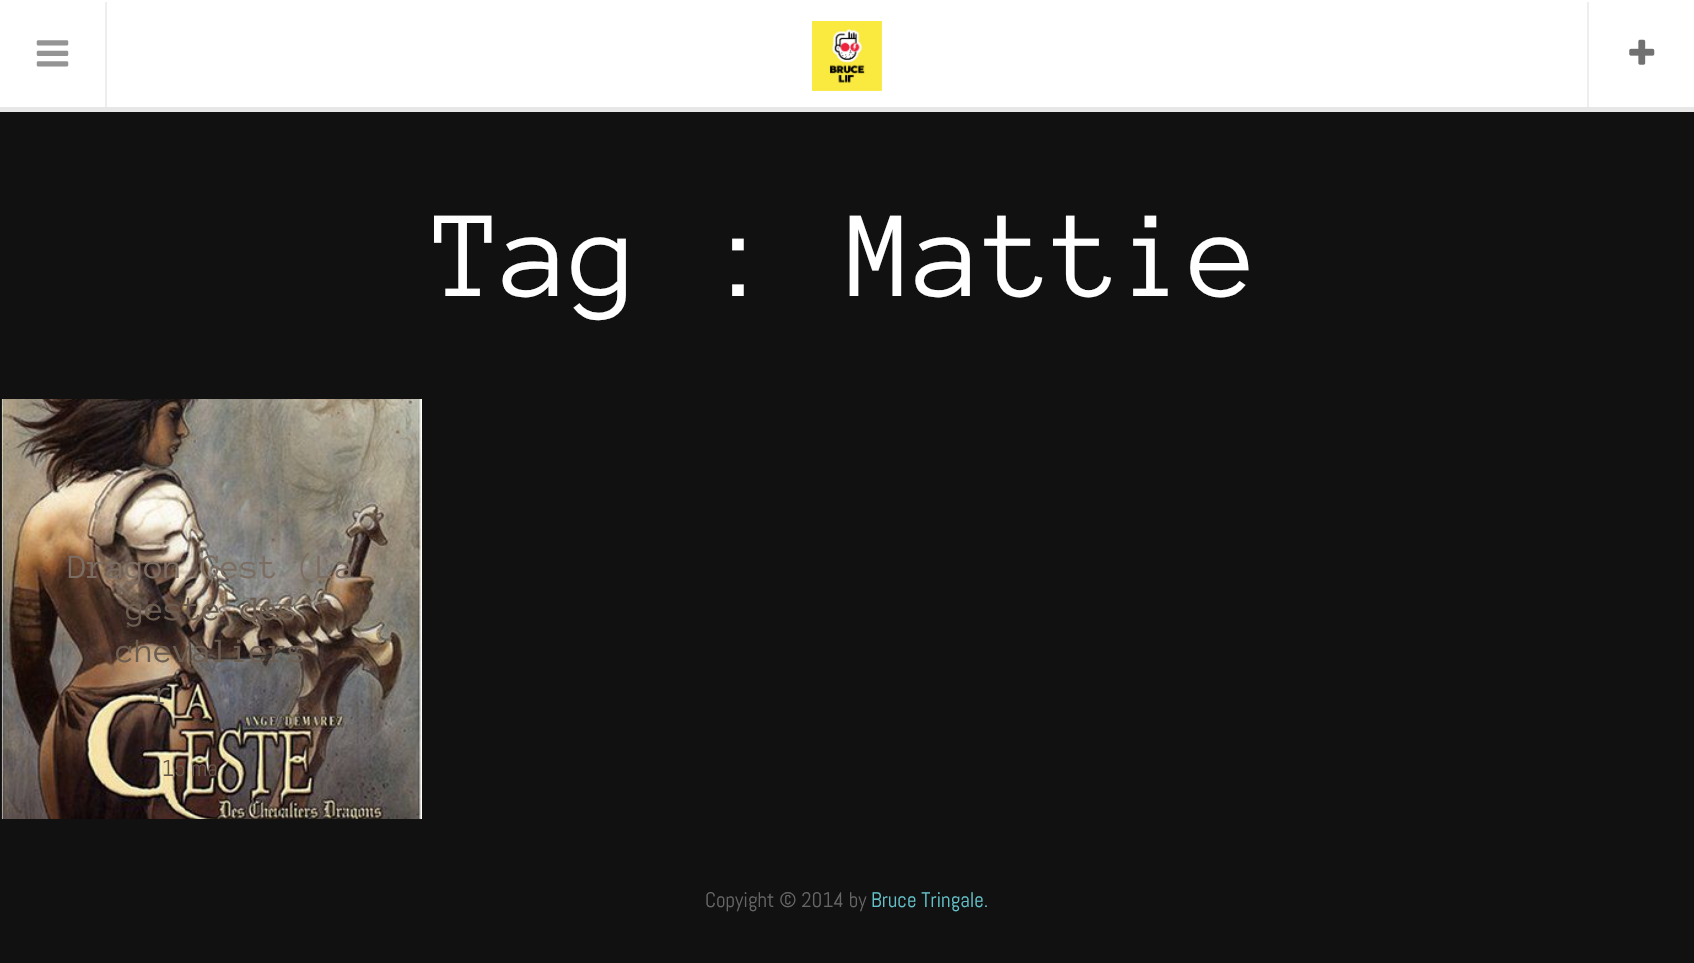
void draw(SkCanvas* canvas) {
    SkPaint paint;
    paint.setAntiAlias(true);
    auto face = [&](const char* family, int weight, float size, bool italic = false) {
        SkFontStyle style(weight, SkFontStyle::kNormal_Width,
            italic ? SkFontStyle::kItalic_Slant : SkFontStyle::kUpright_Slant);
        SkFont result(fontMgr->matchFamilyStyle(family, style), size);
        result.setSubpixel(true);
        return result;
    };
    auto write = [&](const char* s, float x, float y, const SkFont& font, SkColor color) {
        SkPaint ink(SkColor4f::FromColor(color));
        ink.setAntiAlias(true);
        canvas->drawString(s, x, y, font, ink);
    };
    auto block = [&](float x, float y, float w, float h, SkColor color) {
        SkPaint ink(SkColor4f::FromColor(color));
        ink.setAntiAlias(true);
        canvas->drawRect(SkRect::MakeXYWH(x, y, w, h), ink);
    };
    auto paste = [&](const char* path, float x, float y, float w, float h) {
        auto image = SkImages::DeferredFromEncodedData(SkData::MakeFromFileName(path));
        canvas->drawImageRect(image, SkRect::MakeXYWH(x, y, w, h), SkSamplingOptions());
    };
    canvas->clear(SkColorSetRGB(17, 17, 17));
    block(0, 0, 1694, 107, SK_ColorWHITE);
    block(0, 107, 1694, 5, SkColorSetRGB(231, 231, 231));
    block(105, 2, 2, 105, SkColorSetRGB(238, 238, 238));
    paste("pic1.png", 36, 40, 33, 27);
    paste("pic2.png", 812, 21, 70, 70);
    block(1587, 2, 2, 105, SkColorSetRGB(238, 238, 238));
    paste("pic3.png", 1629, 39, 26, 26);
    auto kFont1 = face("Anonymous Pro", 400, 126);
    write("Tag : Mattie", 434, 296, kFont1, SK_ColorWHITE);
    block(421, 399, 1, 420, SK_ColorWHITE);
    paste("pic4.png", 1, 399, 421, 420);
    auto kFont2 = face("Anonymous Pro", 400, 35);
    write("Dragon Gest (La", 68, 578, kFont2, SkColorSetRGB(123, 109, 98));
    write("geste des", 126, 620, kFont2, SkColorSetRGB(108, 93, 81));
    write("chevaliers", 116, 662, kFont2, SkColorSetRGB(108, 93, 81));
    write("r", 154, 704, kFont2, SkColorSetRGB(101, 91, 85));
    auto kFont3 = face("Abel", 400, 23);
    write("15 ma", 162, 776, kFont3, SkColorSetRGB(101, 86, 74));
    auto kFont4 = face("Abel", 400, 21);
    write("Copyight © 2014 by", 705, 907, kFont4, SkColorSetRGB(102, 102, 102));
    write("Bruce Tringale.", 871, 907, kFont4, SkColorSetRGB(100, 194, 202));
}
